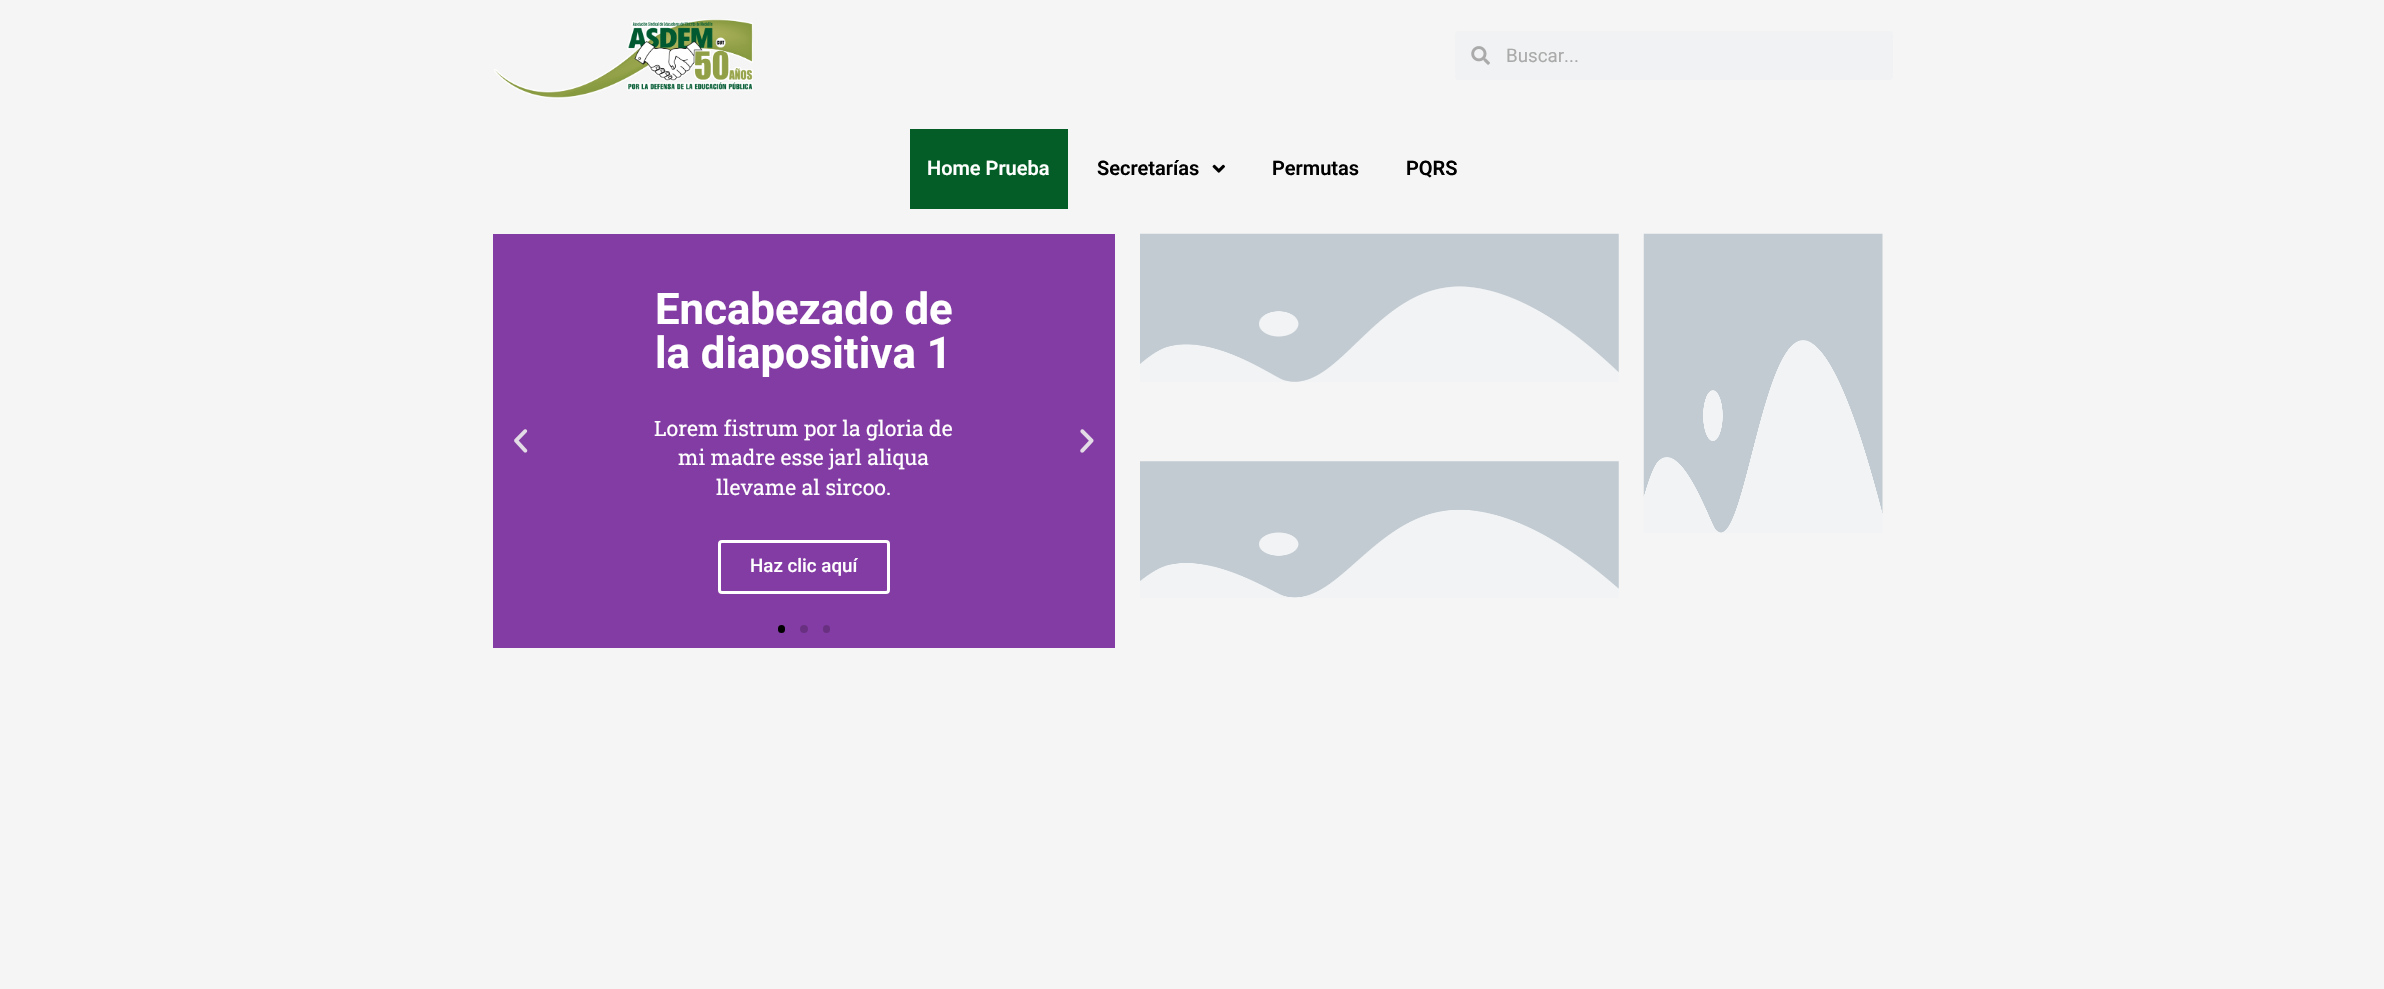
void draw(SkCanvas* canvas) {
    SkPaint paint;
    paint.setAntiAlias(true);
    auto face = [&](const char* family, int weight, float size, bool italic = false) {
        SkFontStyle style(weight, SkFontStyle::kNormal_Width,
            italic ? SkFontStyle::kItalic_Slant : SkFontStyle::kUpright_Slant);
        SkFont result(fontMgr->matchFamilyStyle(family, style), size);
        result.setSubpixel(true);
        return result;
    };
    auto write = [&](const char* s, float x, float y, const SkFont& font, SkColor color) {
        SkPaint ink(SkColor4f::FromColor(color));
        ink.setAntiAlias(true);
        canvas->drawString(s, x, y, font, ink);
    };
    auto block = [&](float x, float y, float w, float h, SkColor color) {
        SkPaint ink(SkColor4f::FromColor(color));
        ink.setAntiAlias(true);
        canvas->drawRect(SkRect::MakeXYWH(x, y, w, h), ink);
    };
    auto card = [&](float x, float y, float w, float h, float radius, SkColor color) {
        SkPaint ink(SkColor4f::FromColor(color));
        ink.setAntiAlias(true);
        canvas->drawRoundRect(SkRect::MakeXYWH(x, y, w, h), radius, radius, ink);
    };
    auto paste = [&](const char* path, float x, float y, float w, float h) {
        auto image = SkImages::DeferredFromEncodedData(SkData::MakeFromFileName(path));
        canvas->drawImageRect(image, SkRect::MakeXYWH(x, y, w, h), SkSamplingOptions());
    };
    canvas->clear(SkColorSetRGB(245, 245, 245));
    paste("pic1.png", 494, 19, 259, 80);
    card(1455, 31, 438, 49, 4, SkColorSetRGB(241, 242, 243));
    paste("pic2.png", 1471, 46, 19, 19);
    auto kFont1 = face("Roboto", 400, 18.75f);
    write("Buscar...", 1506, 62, kFont1, SkColorSetRGB(170, 170, 170));
    block(910, 129, 158, 80, SkColorSetRGB(4, 93, 38));
    auto kFont2 = face("Roboto", 600, 20);
    write("Home Prueba", 927, 175, kFont2, SK_ColorWHITE);
    write("Secretarías", 1097, 175, kFont2, SK_ColorBLACK);
    paste("pic3.png", 1212, 164, 13, 9);
    write("Permutas", 1272, 175, kFont2, SK_ColorBLACK);
    write("PQRS", 1406, 175, kFont2, SK_ColorBLACK);
    block(493, 234, 622, 414, SkColorSetRGB(131, 60, 163));
    paste("pic4.png", 514, 429, 14, 24);
    auto kFont3 = face("Roboto", 700, 43.75f);
    write("Encabezado de", 655, 324, kFont3, SK_ColorWHITE);
    write("la diapositiva 1", 655, 368, kFont3, SK_ColorWHITE);
    auto kFont4 = face("Roboto Slab", 400, 21.25f);
    write("Lorem fistrum por la gloria de", 654, 436, kFont4, SK_ColorWHITE);
    write("mi madre esse jarl aliqua", 678, 465, kFont4, SK_ColorWHITE);
    write("llevame al sircoo.", 716, 495, kFont4, SK_ColorWHITE);
    paint.setStyle(SkPaint::kStroke_Style);
    paint.setStrokeWidth(3);
    paint.setColor(SK_ColorWHITE);
    canvas->drawRoundRect(SkRect::MakeXYWH(719.5f, 541.5f, 169, 51), 2.5f, 2.5f, paint);
    auto kFont5 = face("Roboto", 500, 18.75f);
    write("Haz clic aquí", 750, 572, kFont5, SK_ColorWHITE);
    paste("pic5.png", 1080, 429, 14, 24);
    card(778, 625, 7, 8, 3.5f, SK_ColorBLACK);
    paint.setStyle(SkPaint::kFill_Style);
    paint.setColor(SkColorSetRGB(105, 48, 130));
    canvas->drawCircle(804, 629, 4, paint);
    card(823, 625, 7, 8, 3.5f, SkColorSetRGB(105, 48, 130));
    paste("pic6.png", 1140, 233, 479, 149);
    paste("pic7.png", 1140, 461, 479, 137);
    paste("pic8.png", 1643, 233, 240, 300);
}
